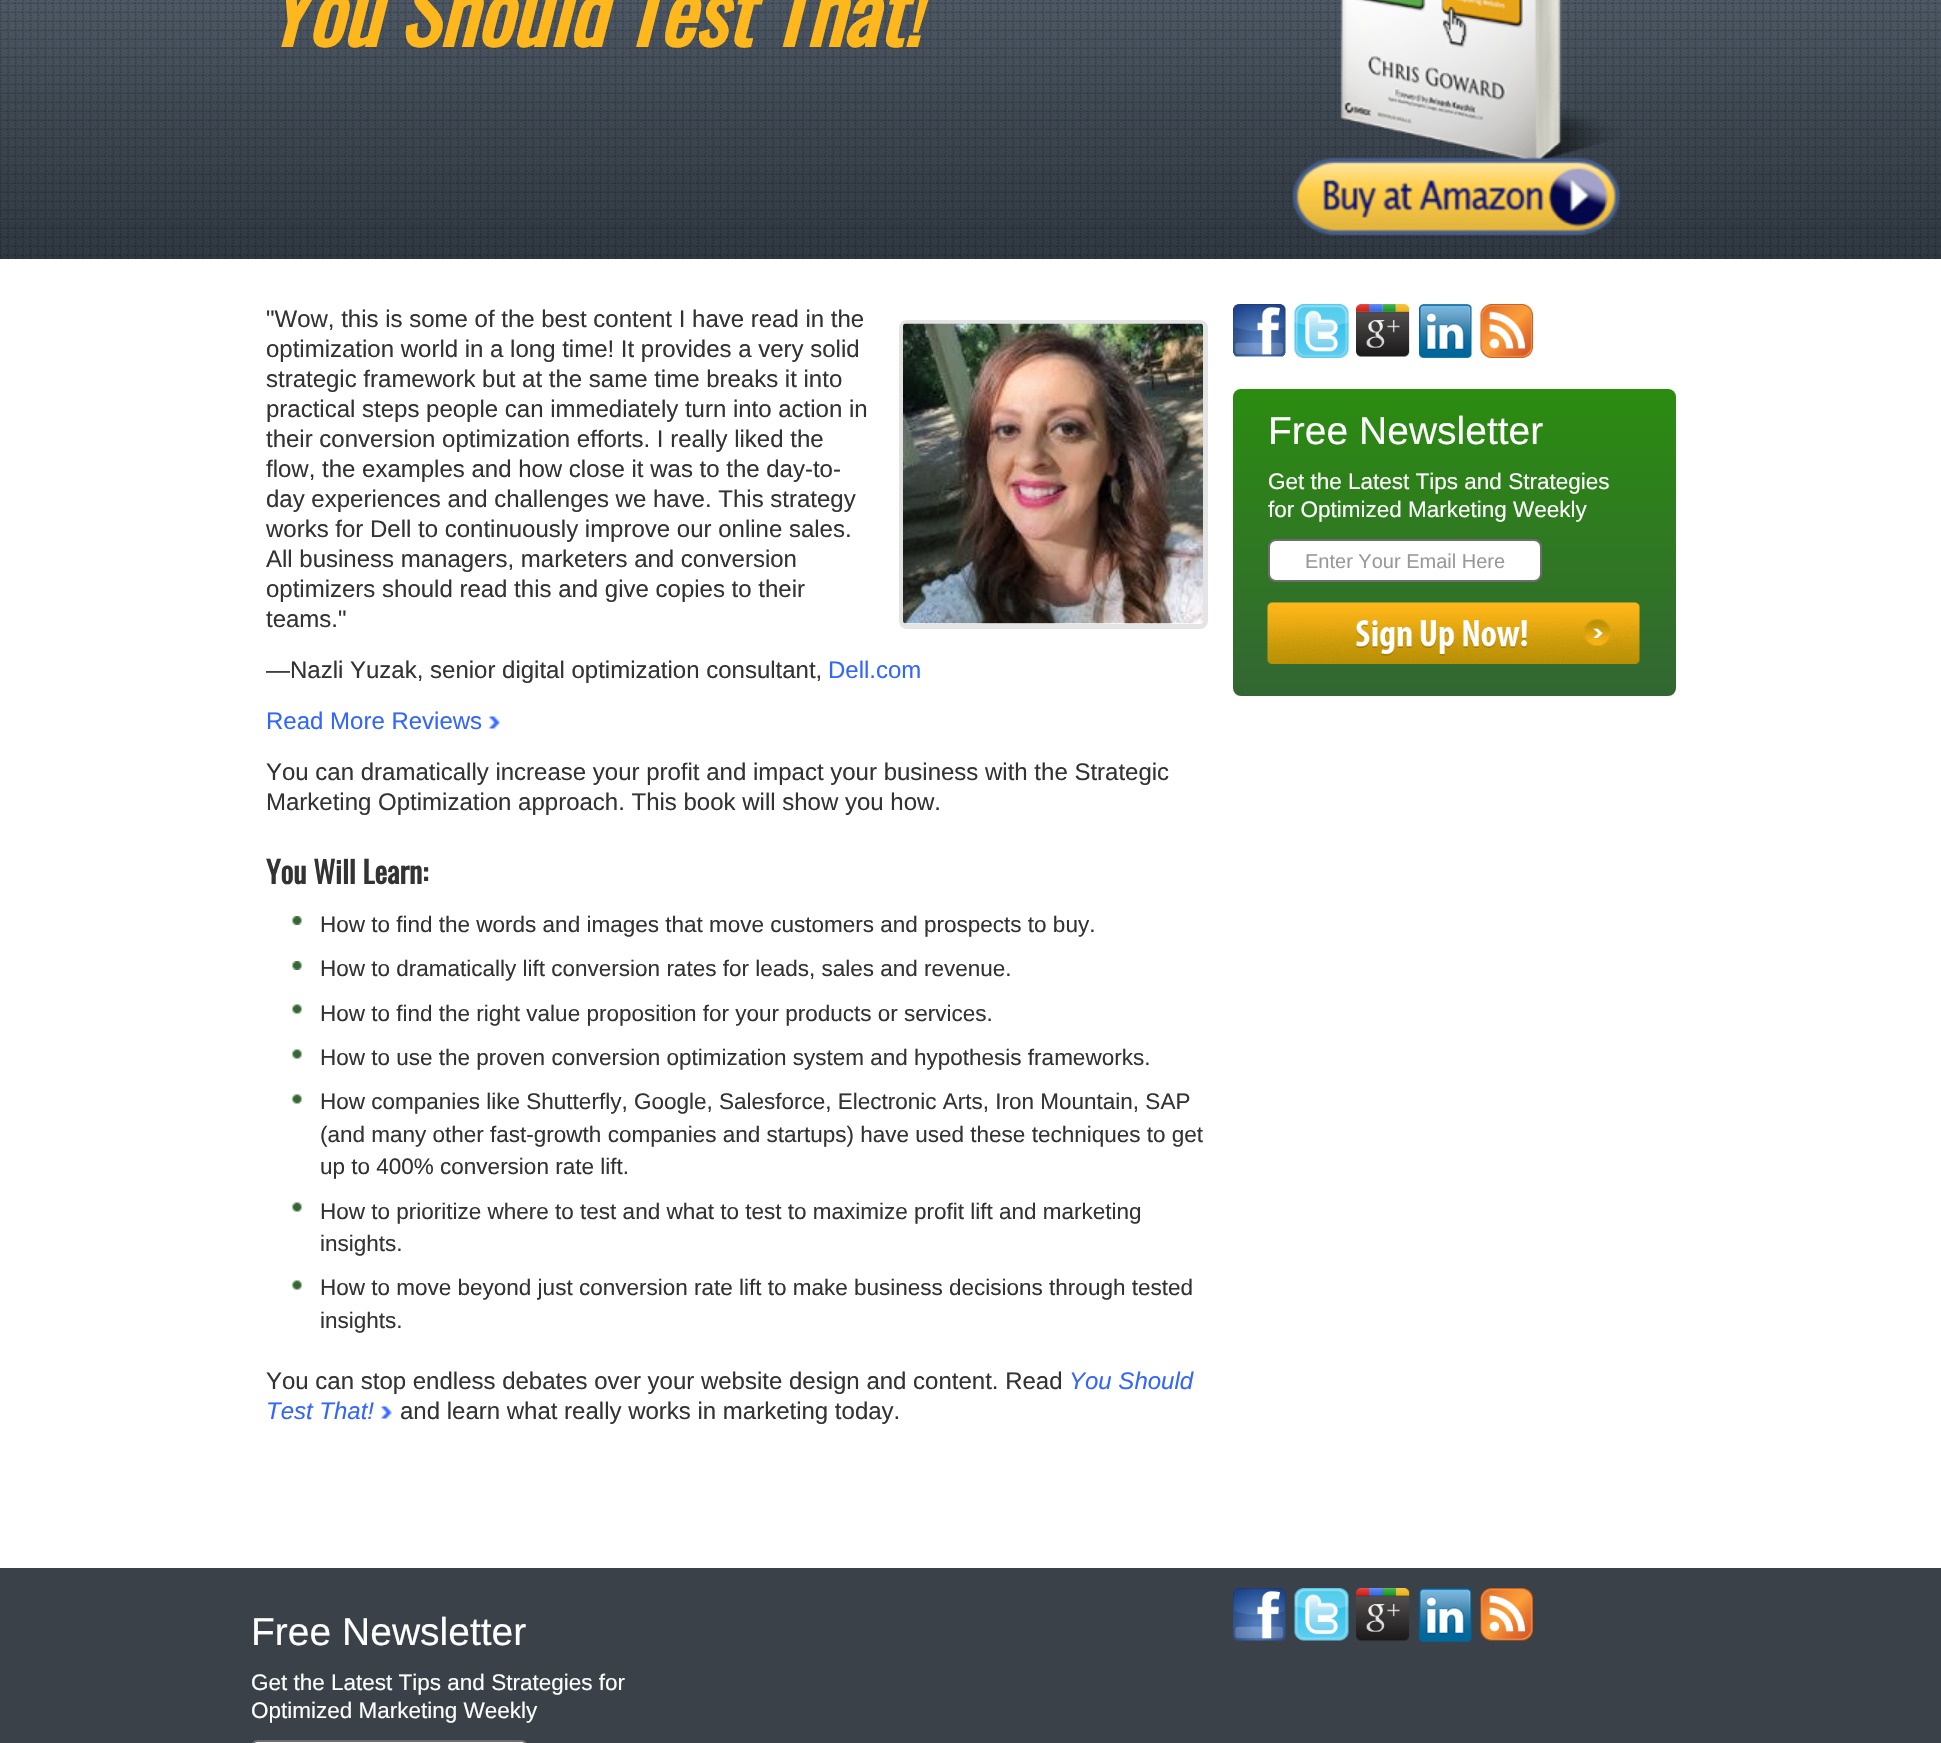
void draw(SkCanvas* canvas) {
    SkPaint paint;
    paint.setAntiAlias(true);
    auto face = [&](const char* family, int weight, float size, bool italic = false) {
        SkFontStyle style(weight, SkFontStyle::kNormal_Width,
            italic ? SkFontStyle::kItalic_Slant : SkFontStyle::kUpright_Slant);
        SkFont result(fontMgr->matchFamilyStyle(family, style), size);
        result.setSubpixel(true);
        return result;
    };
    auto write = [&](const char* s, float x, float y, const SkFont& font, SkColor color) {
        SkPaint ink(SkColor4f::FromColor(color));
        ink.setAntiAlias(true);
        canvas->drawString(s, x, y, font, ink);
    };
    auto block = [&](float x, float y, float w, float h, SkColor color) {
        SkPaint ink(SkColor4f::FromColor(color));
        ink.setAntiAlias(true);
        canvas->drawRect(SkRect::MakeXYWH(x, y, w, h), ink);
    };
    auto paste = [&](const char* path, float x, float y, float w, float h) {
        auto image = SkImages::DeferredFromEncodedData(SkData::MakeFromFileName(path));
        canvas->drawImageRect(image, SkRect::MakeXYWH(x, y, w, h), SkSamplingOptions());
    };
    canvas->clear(SK_ColorWHITE);
    paste("pic1.png", 0, 0, 1941, 259);
    auto kFont1 = face("Oswald", 700, 84, true);
    write("You Should Test That!", 266, 47, kFont1, SkColorSetRGB(254, 184, 29));
    paste("pic2.png", 1292, 0, 329, 236);
    auto kFont2 = face("Liberation Sans", 400, 24);
    write("\"Wow, this is some of the best content I have read in the", 266, 327, kFont2, SkColorSetRGB(51, 51, 51));
    write("optimization world in a long time! It provides a very solid", 266, 357, kFont2, SkColorSetRGB(51, 51, 51));
    write("strategic framework but at the same time breaks it into", 266, 387, kFont2, SkColorSetRGB(51, 51, 51));
    write("practical steps people can immediately turn into action in", 266, 417, kFont2, SkColorSetRGB(51, 51, 51));
    write("their conversion optimization efforts. I really liked the", 266, 447, kFont2, SkColorSetRGB(51, 51, 51));
    write("flow, the examples and how close it was to the day-to-", 266, 477, kFont2, SkColorSetRGB(51, 51, 51));
    write("day experiences and challenges we have. This strategy", 266, 507, kFont2, SkColorSetRGB(51, 51, 51));
    write("works for Dell to continuously improve our online sales.", 266, 537, kFont2, SkColorSetRGB(51, 51, 51));
    write("All business managers, marketers and conversion", 266, 567, kFont2, SkColorSetRGB(51, 51, 51));
    write("optimizers should read this and give copies to their", 266, 597, kFont2, SkColorSetRGB(51, 51, 51));
    write("teams.\"", 266, 627, kFont2, SkColorSetRGB(51, 51, 51));
    paint.setStyle(SkPaint::kStroke_Style);
    paint.setStrokeWidth(5);
    paint.setColor(SkColorSetRGB(228, 228, 228));
    canvas->drawRoundRect(SkRect::MakeXYWH(901.5f, 322.5f, 304, 304), 5.5f, 5.5f, paint);
    paste("pic3.png", 903, 323, 300, 301);
    write("—Nazli Yuzak, senior digital optimization consultant,", 266, 678, kFont2, SkColorSetRGB(51, 51, 51));
    write("Dell.com", 828, 678, kFont2, SkColorSetRGB(51, 102, 255));
    write("Read More Reviews", 266, 729, kFont2, SkColorSetRGB(51, 102, 255));
    paste("pic4.png", 488, 716, 12, 13);
    write("You can dramatically increase your profit and impact your business with the Strategic", 266, 780, kFont2, SkColorSetRGB(51, 51, 51));
    write("Marketing Optimization approach. This book will show you how.", 266, 810, kFont2, SkColorSetRGB(51, 51, 51));
    auto kFont3 = face("Oswald", 700, 30);
    write("You Will Learn:", 266, 884, kFont3, SkColorSetRGB(51, 51, 51));
    paste("pic5.png", 292, 916, 10, 9);
    auto kFont4 = face("Liberation Sans", 400, 22.5f);
    write("How to find the words and images that move customers and prospects to buy.", 320, 932, kFont4, SkColorSetRGB(51, 51, 51));
    paste("pic5.png", 292, 961, 10, 9);
    write("How to dramatically lift conversion rates for leads, sales and revenue.", 320, 976, kFont4, SkColorSetRGB(51, 51, 51));
    paste("pic6.png", 292, 1004, 10, 10);
    write("How to find the right value proposition for your products or services.", 320, 1021, kFont4, SkColorSetRGB(51, 51, 51));
    paste("pic6.png", 292, 1049, 10, 10);
    write("How to use the proven conversion optimization system and hypothesis frameworks.", 320, 1065, kFont4, SkColorSetRGB(51, 51, 51));
    paste("pic6.png", 292, 1094, 10, 10);
    write("How companies like Shutterfly, Google, Salesforce, Electronic Arts, Iron Mountain, SAP", 320, 1109, kFont4, SkColorSetRGB(51, 51, 51));
    write("(and many other fast-growth companies and startups) have used these techniques to get", 320, 1142, kFont4, SkColorSetRGB(51, 51, 51));
    write("up to 400% conversion rate lift.", 320, 1174, kFont4, SkColorSetRGB(51, 51, 51));
    paste("pic6.png", 292, 1202, 10, 10);
    write("How to prioritize where to test and what to test to maximize profit lift and marketing", 320, 1219, kFont4, SkColorSetRGB(51, 51, 51));
    write("insights.", 320, 1251, kFont4, SkColorSetRGB(51, 51, 51));
    paste("pic6.png", 292, 1280, 10, 10);
    write("How to move beyond just conversion rate lift to make business decisions through tested", 320, 1295, kFont4, SkColorSetRGB(51, 51, 51));
    write("insights.", 320, 1328, kFont4, SkColorSetRGB(51, 51, 51));
    write("You can stop endless debates over your website design and content. Read", 266, 1389, kFont2, SkColorSetRGB(51, 51, 51));
    auto kFont5 = face("Liberation Sans", 400, 24, true);
    write("You Should", 1069, 1389, kFont5, SkColorSetRGB(51, 102, 255));
    write("Test That!", 266, 1419, kFont5, SkColorSetRGB(51, 102, 255));
    paste("pic7.png", 380, 1406, 12, 13);
    write("and learn what really works in marketing today.", 400, 1419, kFont2, SkColorSetRGB(51, 51, 51));
    paste("pic8.png", 1233, 304, 53, 53);
    paste("pic9.png", 1294, 304, 55, 54);
    paste("pic10.png", 1356, 304, 54, 53);
    paste("pic11.png", 1419, 304, 53, 54);
    paste("pic12.png", 1480, 304, 53, 54);
    paint.setStyle(SkPaint::kFill_Style);
    {
        const SkColor colors[] = {SkColorSetRGB(43, 140, 16), SkColorSetRGB(51, 102, 51)};
        const float stops[] = {0, 1};
        const SkPoint ends[] = {{1454, 389}, {1454, 696}};
        paint.setShader(SkGradientShader::MakeLinear(ends, colors, stops, 2, SkTileMode::kClamp));
        paint.setAlpha(255);
    }
    canvas->drawRoundRect(SkRect::MakeXYWH(1233, 389, 443, 307), 8, 8, paint);
    auto kFont6 = face("Liberation Sans", 400, 39);
    write("Free Newsletter", 1268, 444, kFont6, SK_ColorWHITE);
    write("Get the Latest Tips and Strategies", 1268, 489, kFont4, SK_ColorWHITE);
    write("for Optimized Marketing Weekly", 1268, 517, kFont4, SK_ColorWHITE);
    paint.setShader(nullptr);
    paint.setColor(SK_ColorWHITE);
    canvas->drawRoundRect(SkRect::MakeXYWH(1269, 540, 272, 41), 7, 7, paint);
    paint.setStyle(SkPaint::kStroke_Style);
    paint.setStrokeWidth(2);
    paint.setColor(SkColorSetRGB(110, 110, 110));
    canvas->drawRoundRect(SkRect::MakeXYWH(1269, 540, 272, 41), 7, 7, paint);
    auto kFont7 = face("Liberation Sans", 400, 20);
    write("Enter Your Email Here", 1305, 568, kFont7, SkColorSetRGB(153, 153, 153));
    paste("pic13.png", 1267, 602, 373, 62);
    block(0, 1568, 1941, 175, SkColorSetRGB(58, 65, 73));
    write("Free Newsletter", 251, 1645, kFont6, SK_ColorWHITE);
    write("Get the Latest Tips and Strategies for", 251, 1690, kFont4, SK_ColorWHITE);
    write("Optimized Marketing Weekly", 251, 1718, kFont4, SK_ColorWHITE);
    paint.setStyle(SkPaint::kFill_Style);
    paint.setColor(SK_ColorWHITE);
    canvas->drawRoundRect(SkRect::MakeXYWH(252, 1741, 275, 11), 7, 7, paint);
    paint.setStyle(SkPaint::kStroke_Style);
    paint.setColor(SkColorSetRGB(110, 110, 110));
    canvas->drawRoundRect(SkRect::MakeXYWH(252, 1741, 275, 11), 7, 7, paint);
    paste("pic14.png", 1233, 1588, 53, 53);
    paste("pic15.png", 1294, 1588, 55, 53);
    paste("pic16.png", 1356, 1588, 54, 53);
    paste("pic17.png", 1419, 1588, 53, 54);
    paste("pic18.png", 1480, 1588, 53, 53);
}
